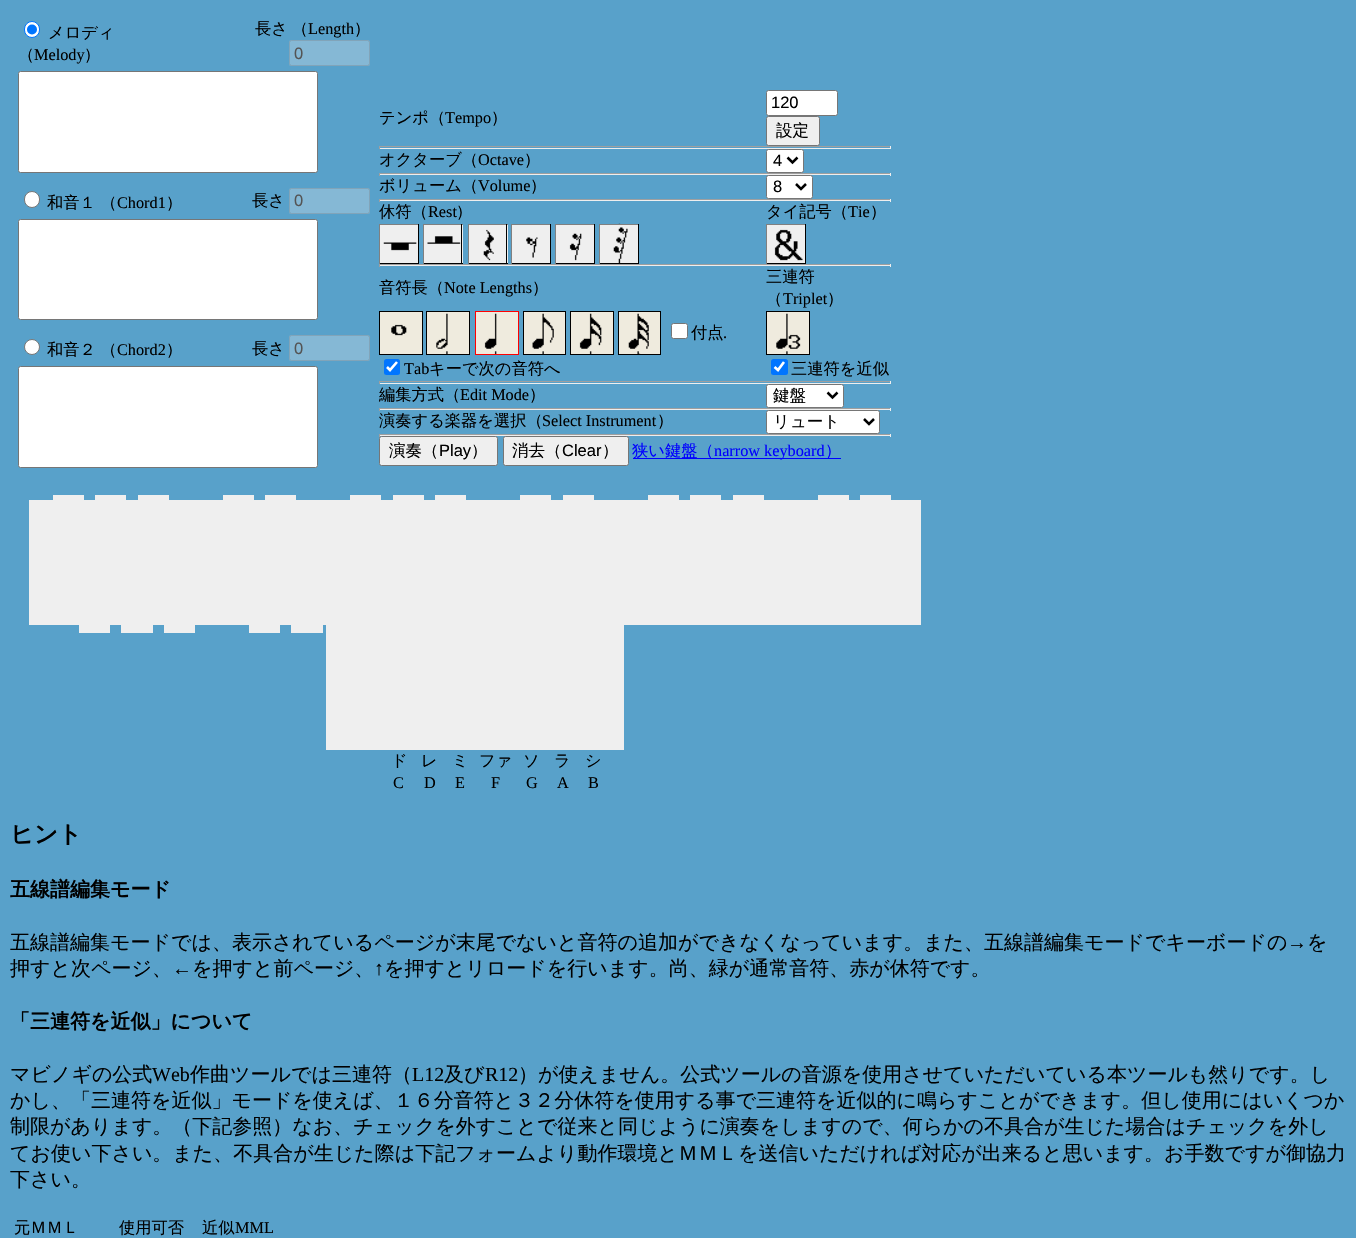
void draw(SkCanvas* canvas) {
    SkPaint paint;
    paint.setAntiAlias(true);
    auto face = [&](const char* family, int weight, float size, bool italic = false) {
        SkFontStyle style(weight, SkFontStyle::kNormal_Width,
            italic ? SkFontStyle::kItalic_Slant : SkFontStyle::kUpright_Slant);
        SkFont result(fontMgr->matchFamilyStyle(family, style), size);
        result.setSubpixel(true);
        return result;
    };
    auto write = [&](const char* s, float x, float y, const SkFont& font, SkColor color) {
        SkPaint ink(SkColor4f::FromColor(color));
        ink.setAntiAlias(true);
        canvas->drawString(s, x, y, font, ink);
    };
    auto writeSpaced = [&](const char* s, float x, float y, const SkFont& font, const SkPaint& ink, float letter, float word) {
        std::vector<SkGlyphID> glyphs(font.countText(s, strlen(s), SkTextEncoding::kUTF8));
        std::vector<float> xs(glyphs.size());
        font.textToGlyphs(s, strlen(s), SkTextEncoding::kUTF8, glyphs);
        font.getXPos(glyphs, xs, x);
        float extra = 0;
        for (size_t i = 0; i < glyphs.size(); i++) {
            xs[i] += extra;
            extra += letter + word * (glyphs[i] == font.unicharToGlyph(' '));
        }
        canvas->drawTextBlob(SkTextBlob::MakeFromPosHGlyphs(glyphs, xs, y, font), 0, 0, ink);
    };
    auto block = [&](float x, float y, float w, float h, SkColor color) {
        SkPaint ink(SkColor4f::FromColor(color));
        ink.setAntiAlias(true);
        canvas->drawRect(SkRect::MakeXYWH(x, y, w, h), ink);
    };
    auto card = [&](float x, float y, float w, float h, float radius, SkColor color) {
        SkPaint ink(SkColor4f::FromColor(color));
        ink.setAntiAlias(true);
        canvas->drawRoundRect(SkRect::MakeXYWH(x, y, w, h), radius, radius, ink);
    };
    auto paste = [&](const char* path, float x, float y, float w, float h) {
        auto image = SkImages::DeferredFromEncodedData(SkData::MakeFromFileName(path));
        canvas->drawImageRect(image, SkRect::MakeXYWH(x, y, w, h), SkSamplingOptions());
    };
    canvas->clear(SkColorSetRGB(88, 161, 202));
    paint.setColor(SK_ColorWHITE);
    canvas->drawRoundRect(SkRect::MakeXYWH(24.5f, 21.5f, 15, 16), 7.5f, 7.5f, paint);
    paint.setStyle(SkPaint::kStroke_Style);
    paint.setStrokeWidth(1);
    paint.setColor(SkColorSetRGB(0, 117, 255));
    canvas->drawRoundRect(SkRect::MakeXYWH(24.5f, 21.5f, 15, 16), 7.5f, 7.5f, paint);
    paint.setStyle(SkPaint::kFill_Style);
    canvas->drawCircle(32, 29.5f, 5, paint);
    auto kFont1 = face("WenQuanYi Zen Hei", 500, 16.25f);
    write("メロディ", 48, 38, kFont1, SK_ColorBLACK);
    write("（", 18, 60, kFont1, SK_ColorBLACK);
    auto kFont2 = face("Liberation Serif", 400, 16.25f);
    write("Melody", 34, 60, kFont2, SK_ColorBLACK);
    write("）", 84, 60, kFont1, SK_ColorBLACK);
    paint.setColor(SK_ColorBLACK);
    writeSpaced("長さ （", 255, 34, kFont1, paint, 0, -1);
    write("Length", 308, 34, kFont2, SK_ColorBLACK);
    write("）", 354, 34, kFont1, SK_ColorBLACK);
    card(289, 40, 81, 26, 2.5f, SkColorSetRGB(133, 184, 213));
    paint.setStyle(SkPaint::kStroke_Style);
    paint.setColor(SkColorSetARGB(77, 118, 118, 118));
    canvas->drawRoundRect(SkRect::MakeXYWH(289.5f, 40.5f, 80, 25), 2, 2, paint);
    auto kFont3 = face("Liberation Sans", 400, 16.5f);
    write("0", 294, 59, kFont3, SkColorSetRGB(84, 84, 84));
    paint.setStyle(SkPaint::kFill_Style);
    paint.setColor(SK_ColorWHITE);
    canvas->drawRoundRect(SkRect::MakeXYWH(18.5f, 71.5f, 299, 101), 2, 2, paint);
    paint.setStyle(SkPaint::kStroke_Style);
    paint.setColor(SkColorSetRGB(118, 118, 118));
    canvas->drawRoundRect(SkRect::MakeXYWH(18.5f, 71.5f, 299, 101), 2, 2, paint);
    paint.setStyle(SkPaint::kFill_Style);
    paint.setColor(SK_ColorWHITE);
    canvas->drawRoundRect(SkRect::MakeXYWH(24.5f, 191.5f, 15, 16), 7.5f, 7.5f, paint);
    paint.setStyle(SkPaint::kStroke_Style);
    paint.setColor(SkColorSetRGB(118, 118, 118));
    canvas->drawRoundRect(SkRect::MakeXYWH(24.5f, 191.5f, 15, 16), 7.5f, 7.5f, paint);
    write("和音１ （", 47, 208, kFont1, SK_ColorBLACK);
    write("Chord1", 117, 208, kFont2, SK_ColorBLACK);
    write("）", 166, 208, kFont1, SK_ColorBLACK);
    write("長さ", 252, 206, kFont1, SK_ColorBLACK);
    card(289, 188, 81, 26, 2.5f, SkColorSetRGB(133, 184, 213));
    paint.setColor(SkColorSetARGB(77, 118, 118, 118));
    canvas->drawRoundRect(SkRect::MakeXYWH(289.5f, 188.5f, 80, 25), 2, 2, paint);
    write("0", 294, 206, kFont3, SkColorSetRGB(84, 84, 84));
    paint.setStyle(SkPaint::kFill_Style);
    paint.setColor(SK_ColorWHITE);
    canvas->drawRoundRect(SkRect::MakeXYWH(18.5f, 219.5f, 299, 100), 2, 2, paint);
    paint.setStyle(SkPaint::kStroke_Style);
    paint.setColor(SkColorSetRGB(118, 118, 118));
    canvas->drawRoundRect(SkRect::MakeXYWH(18.5f, 219.5f, 299, 100), 2, 2, paint);
    paint.setStyle(SkPaint::kFill_Style);
    paint.setColor(SK_ColorWHITE);
    canvas->drawCircle(32, 347, 7.5f, paint);
    paint.setStyle(SkPaint::kStroke_Style);
    paint.setColor(SkColorSetRGB(118, 118, 118));
    canvas->drawCircle(32, 347, 7.5f, paint);
    write("和音２ （", 47, 355, kFont1, SK_ColorBLACK);
    write("Chord2", 117, 355, kFont2, SK_ColorBLACK);
    write("）", 166, 355, kFont1, SK_ColorBLACK);
    write("長さ", 252, 354, kFont1, SK_ColorBLACK);
    card(289, 335, 81, 26, 2.5f, SkColorSetRGB(133, 184, 213));
    paint.setColor(SkColorSetARGB(77, 118, 118, 118));
    canvas->drawRoundRect(SkRect::MakeXYWH(289.5f, 335.5f, 80, 25), 2, 2, paint);
    write("0", 294, 354, kFont3, SkColorSetRGB(84, 84, 84));
    paint.setStyle(SkPaint::kFill_Style);
    paint.setColor(SK_ColorWHITE);
    canvas->drawRoundRect(SkRect::MakeXYWH(18.5f, 366.5f, 299, 101), 2, 2, paint);
    paint.setStyle(SkPaint::kStroke_Style);
    paint.setColor(SkColorSetRGB(118, 118, 118));
    canvas->drawRoundRect(SkRect::MakeXYWH(18.5f, 366.5f, 299, 101), 2, 2, paint);
    block(53, 495, 31, 5, SkColorSetRGB(239, 239, 239));
    block(95, 495, 31, 5, SkColorSetRGB(239, 239, 239));
    block(138, 495, 31, 5, SkColorSetRGB(239, 239, 239));
    block(223, 495, 31, 5, SkColorSetRGB(239, 239, 239));
    block(265, 495, 31, 5, SkColorSetRGB(239, 239, 239));
    block(350, 495, 31, 5, SkColorSetRGB(239, 239, 239));
    block(393, 495, 31, 5, SkColorSetRGB(239, 239, 239));
    block(435, 495, 31, 5, SkColorSetRGB(239, 239, 239));
    block(520, 495, 31, 5, SkColorSetRGB(239, 239, 239));
    block(563, 495, 31, 5, SkColorSetRGB(239, 239, 239));
    block(648, 495, 31, 5, SkColorSetRGB(239, 239, 239));
    block(690, 495, 31, 5, SkColorSetRGB(239, 239, 239));
    block(733, 495, 31, 5, SkColorSetRGB(239, 239, 239));
    block(818, 495, 31, 5, SkColorSetRGB(239, 239, 239));
    block(860, 495, 31, 5, SkColorSetRGB(239, 239, 239));
    block(79, 625, 31, 8, SkColorSetRGB(239, 239, 239));
    block(121, 625, 32, 8, SkColorSetRGB(239, 239, 239));
    block(164, 625, 31, 8, SkColorSetRGB(239, 239, 239));
    block(249, 625, 31, 8, SkColorSetRGB(239, 239, 239));
    block(291, 625, 32, 8, SkColorSetRGB(239, 239, 239));
    block(29, 500, 892, 125, SkColorSetRGB(239, 239, 239));
    block(326, 625, 298, 125, SkColorSetRGB(239, 239, 239));
    write("ド", 391, 766, kFont1, SK_ColorBLACK);
    write("C", 393, 788, kFont2, SK_ColorBLACK);
    write("レ", 421, 766, kFont1, SK_ColorBLACK);
    write("D", 424, 788, kFont2, SK_ColorBLACK);
    write("ミ", 452, 766, kFont1, SK_ColorBLACK);
    write("E", 455, 788, kFont2, SK_ColorBLACK);
    write("ファ", 479, 766, kFont1, SK_ColorBLACK);
    write("F", 491, 788, kFont2, SK_ColorBLACK);
    write("ソ", 523, 766, kFont1, SK_ColorBLACK);
    write("G", 526, 788, kFont2, SK_ColorBLACK);
    write("ラ", 554, 766, kFont1, SK_ColorBLACK);
    write("A", 557, 788, kFont2, SK_ColorBLACK);
    write("シ", 585, 766, kFont1, SK_ColorBLACK);
    write("B", 588, 788, kFont2, SK_ColorBLACK);
    write("テンポ（", 379, 123, kFont1, SK_ColorBLACK);
    write("Tempo", 445, 123, kFont2, SK_ColorBLACK);
    write("）", 491, 123, kFont1, SK_ColorBLACK);
    paint.setStyle(SkPaint::kFill_Style);
    paint.setColor(SK_ColorWHITE);
    canvas->drawRoundRect(SkRect::MakeXYWH(766.5f, 90.5f, 71, 25), 2, 2, paint);
    paint.setStyle(SkPaint::kStroke_Style);
    paint.setColor(SkColorSetRGB(118, 118, 118));
    canvas->drawRoundRect(SkRect::MakeXYWH(766.5f, 90.5f, 71, 25), 2, 2, paint);
    write("120", 771, 108, kFont3, SK_ColorBLACK);
    paint.setStyle(SkPaint::kFill_Style);
    paint.setColor(SkColorSetRGB(239, 239, 239));
    canvas->drawRoundRect(SkRect::MakeXYWH(766.5f, 116.5f, 53, 29), 2, 2, paint);
    paint.setStyle(SkPaint::kStroke_Style);
    paint.setColor(SkColorSetRGB(118, 118, 118));
    canvas->drawRoundRect(SkRect::MakeXYWH(766.5f, 116.5f, 53, 29), 2, 2, paint);
    auto kFont4 = face("WenQuanYi Zen Hei", 500, 16.5f);
    write("設定", 776, 136, kFont4, SK_ColorBLACK);
    block(379, 146, 512, 1, SkColorSetRGB(159, 159, 159));
    block(890, 146, 1, 3, SkColorSetRGB(238, 238, 238));
    block(379, 148, 512, 1, SkColorSetRGB(238, 238, 238));
    block(379, 146, 1, 3, SkColorSetRGB(159, 159, 159));
    write("オクターブ（", 379, 165, kFont1, SK_ColorBLACK);
    write("Octave", 478, 165, kFont2, SK_ColorBLACK);
    write("）", 524, 165, kFont1, SK_ColorBLACK);
    paint.setStyle(SkPaint::kFill_Style);
    paint.setColor(SK_ColorWHITE);
    canvas->drawRoundRect(SkRect::MakeXYWH(766.5f, 149.5f, 37, 23), 2, 2, paint);
    paint.setStyle(SkPaint::kStroke_Style);
    paint.setColor(SkColorSetRGB(118, 118, 118));
    canvas->drawRoundRect(SkRect::MakeXYWH(766.5f, 149.5f, 37, 23), 2, 2, paint);
    paint.setStrokeWidth(2.5f);
    paint.setColor(SK_ColorBLACK);
    canvas->drawPath(SkPathBuilder().moveTo(787.5f, 157.5f).lineTo(792.5f, 162.5f).lineTo(797.5f, 157.5f).detach(), paint);
    write("4", 773, 166, kFont3, SK_ColorBLACK);
    block(379, 173, 512, 1, SkColorSetRGB(159, 159, 159));
    block(890, 173, 1, 3, SkColorSetRGB(238, 238, 238));
    block(379, 174, 512, 1, SkColorSetRGB(238, 238, 238));
    block(379, 173, 1, 3, SkColorSetRGB(159, 159, 159));
    write("ボリューム（", 379, 191, kFont1, SK_ColorBLACK);
    write("Volume", 478, 191, kFont2, SK_ColorBLACK);
    write("）", 530, 191, kFont1, SK_ColorBLACK);
    paint.setStyle(SkPaint::kFill_Style);
    paint.setColor(SK_ColorWHITE);
    canvas->drawRoundRect(SkRect::MakeXYWH(766.5f, 175.5f, 46, 23), 2, 2, paint);
    paint.setStyle(SkPaint::kStroke_Style);
    paint.setStrokeWidth(1);
    paint.setColor(SkColorSetRGB(118, 118, 118));
    canvas->drawRoundRect(SkRect::MakeXYWH(766.5f, 175.5f, 46, 23), 2, 2, paint);
    paint.setStrokeWidth(2.5f);
    paint.setColor(SK_ColorBLACK);
    canvas->drawPath(SkPathBuilder().moveTo(796, 184).lineTo(801, 189).lineTo(806, 184).detach(), paint);
    write("8", 773, 192, kFont3, SK_ColorBLACK);
    block(379, 199, 512, 1, SkColorSetRGB(159, 159, 159));
    block(890, 199, 1, 3, SkColorSetRGB(238, 238, 238));
    block(379, 200, 512, 1, SkColorSetRGB(238, 238, 238));
    block(379, 199, 1, 3, SkColorSetRGB(159, 159, 159));
    write("休符（", 379, 217, kFont1, SK_ColorBLACK);
    write("Rest", 428, 217, kFont2, SK_ColorBLACK);
    write("）", 456, 217, kFont1, SK_ColorBLACK);
    write("タイ記号（", 766, 217, kFont1, SK_ColorBLACK);
    write("Tie", 848, 217, kFont2, SK_ColorBLACK);
    write("）", 870, 217, kFont1, SK_ColorBLACK);
    block(380, 225, 38, 38, SkColorSetRGB(239, 239, 239));
    paste("pic1.png", 383, 242, 34, 9);
    block(379, 224, 40, 1, SkColorSetRGB(128, 128, 128));
    block(418, 224, 1, 40, SK_ColorBLACK);
    block(379, 263, 40, 1, SK_ColorBLACK);
    block(379, 224, 1, 40, SkColorSetRGB(128, 128, 128));
    block(424, 225, 39, 38, SkColorSetRGB(239, 239, 239));
    paste("pic2.png", 427, 236, 34, 8);
    block(423, 224, 40, 1, SkColorSetRGB(128, 128, 128));
    block(461, 224, 1, 40, SK_ColorBLACK);
    block(423, 263, 40, 1, SK_ColorBLACK);
    block(423, 224, 1, 40, SkColorSetRGB(128, 128, 128));
    block(469, 225, 39, 38, SkColorSetRGB(239, 239, 239));
    paste("pic3.png", 483, 229, 11, 32);
    block(468, 224, 40, 1, SkColorSetRGB(128, 128, 128));
    block(506, 224, 1, 40, SK_ColorBLACK);
    block(468, 263, 40, 1, SK_ColorBLACK);
    block(468, 224, 1, 40, SkColorSetRGB(128, 128, 128));
    block(512, 225, 38, 38, SkColorSetRGB(239, 239, 239));
    paste("pic4.png", 526, 237, 12, 21);
    block(511, 224, 40, 1, SkColorSetRGB(128, 128, 128));
    block(550, 224, 1, 40, SK_ColorBLACK);
    block(511, 263, 40, 1, SK_ColorBLACK);
    block(511, 224, 1, 40, SkColorSetRGB(128, 128, 128));
    block(556, 225, 38, 38, SkColorSetRGB(239, 239, 239));
    paste("pic5.png", 569, 233, 13, 28);
    block(555, 224, 40, 1, SkColorSetRGB(128, 128, 128));
    block(594, 224, 1, 40, SK_ColorBLACK);
    block(555, 263, 40, 1, SK_ColorBLACK);
    block(555, 224, 1, 40, SkColorSetRGB(128, 128, 128));
    block(600, 225, 38, 38, SkColorSetRGB(239, 239, 239));
    paste("pic6.png", 613, 223, 15, 40);
    block(599, 224, 40, 1, SkColorSetRGB(128, 128, 128));
    block(638, 224, 1, 40, SK_ColorBLACK);
    block(599, 263, 40, 1, SK_ColorBLACK);
    block(599, 224, 1, 40, SkColorSetRGB(128, 128, 128));
    block(767, 225, 38, 38, SkColorSetRGB(239, 239, 239));
    paste("pic7.png", 774, 229, 29, 32);
    block(766, 224, 40, 1, SkColorSetRGB(128, 128, 128));
    block(805, 224, 1, 40, SK_ColorBLACK);
    block(766, 263, 40, 1, SK_ColorBLACK);
    block(766, 224, 1, 40, SkColorSetRGB(128, 128, 128));
    block(379, 264, 512, 1, SkColorSetRGB(159, 159, 159));
    block(890, 264, 1, 3, SkColorSetRGB(238, 238, 238));
    block(379, 265, 512, 1, SkColorSetRGB(238, 238, 238));
    block(379, 264, 1, 3, SkColorSetRGB(159, 159, 159));
    write("音符長（", 379, 293, kFont1, SK_ColorBLACK);
    write("Note Lengths", 444, 293, kFont2, SK_ColorBLACK);
    write("）", 532, 293, kFont1, SK_ColorBLACK);
    write("三連符", 766, 282, kFont1, SK_ColorBLACK);
    write("（", 766, 304, kFont1, SK_ColorBLACK);
    write("Triplet", 783, 304, kFont2, SK_ColorBLACK);
    write("）", 827, 304, kFont1, SK_ColorBLACK);
    block(380, 312, 42, 42, SkColorSetRGB(239, 235, 222));
    paste("pic8.png", 391, 324, 16, 12);
    paint.setStrokeWidth(1);
    canvas->drawRect(SkRect::MakeXYWH(379.5f, 311.5f, 43, 43), paint);
    block(427, 312, 42, 42, SkColorSetRGB(239, 235, 222));
    paste("pic9.png", 436, 313, 12, 41);
    canvas->drawRect(SkRect::MakeXYWH(426.5f, 311.5f, 43, 43), paint);
    block(476, 312, 42, 42, SkColorSetRGB(239, 235, 222));
    paste("pic10.png", 484, 313, 13, 41);
    paint.setColor(SkColorSetRGB(255, 0, 0));
    canvas->drawRect(SkRect::MakeXYWH(475.5f, 311.5f, 43, 43), paint);
    block(524, 312, 41, 42, SkColorSetRGB(239, 235, 222));
    paste("pic11.png", 532, 313, 22, 41);
    paint.setColor(SK_ColorBLACK);
    canvas->drawRect(SkRect::MakeXYWH(523.5f, 311.5f, 42, 43), paint);
    block(571, 312, 42, 42, SkColorSetRGB(239, 235, 222));
    paste("pic12.png", 579, 313, 23, 41);
    canvas->drawRect(SkRect::MakeXYWH(570.5f, 311.5f, 43, 43), paint);
    block(619, 312, 41, 42, SkColorSetRGB(239, 235, 222));
    paste("pic13.png", 628, 313, 21, 41);
    canvas->drawRect(SkRect::MakeXYWH(618.5f, 311.5f, 42, 43), paint);
    paint.setStyle(SkPaint::kFill_Style);
    paint.setColor(SK_ColorWHITE);
    canvas->drawRoundRect(SkRect::MakeXYWH(671.5f, 323.5f, 16, 15), 2, 2, paint);
    paint.setStyle(SkPaint::kStroke_Style);
    paint.setColor(SkColorSetRGB(118, 118, 118));
    canvas->drawRoundRect(SkRect::MakeXYWH(671.5f, 323.5f, 16, 15), 2, 2, paint);
    write("付点", 691, 338, kFont1, SK_ColorBLACK);
    write(".", 723, 338, kFont2, SK_ColorBLACK);
    card(384, 359, 16, 16, 2.5f, SkColorSetRGB(0, 117, 255));
    paint.setStrokeWidth(2.6f);
    paint.setColor(SK_ColorWHITE);
    canvas->drawPath(SkPathBuilder().moveTo(387, 367).lineTo(390, 370).lineTo(397, 362).detach(), paint);
    write("Tab", 404, 374, kFont2, SK_ColorBLACK);
    write("キーで次の音符へ", 429, 374, kFont1, SK_ColorBLACK);
    block(767, 312, 42, 42, SkColorSetRGB(239, 235, 222));
    paste("pic14.png", 776, 313, 25, 41);
    paint.setStrokeWidth(1);
    paint.setColor(SK_ColorBLACK);
    canvas->drawRect(SkRect::MakeXYWH(766.5f, 311.5f, 43, 43), paint);
    card(771, 359, 17, 16, 2.5f, SkColorSetRGB(0, 117, 255));
    paint.setStrokeWidth(2.6f);
    paint.setColor(SK_ColorWHITE);
    canvas->drawPath(SkPathBuilder().moveTo(774.5f, 367).lineTo(778, 370).lineTo(784, 362).detach(), paint);
    write("三連符を近似", 791, 374, kFont1, SK_ColorBLACK);
    block(379, 381, 512, 1, SkColorSetRGB(159, 159, 159));
    block(890, 381, 1, 3, SkColorSetRGB(238, 238, 238));
    block(379, 383, 512, 1, SkColorSetRGB(238, 238, 238));
    block(379, 381, 1, 3, SkColorSetRGB(159, 159, 159));
    write("編集方式（", 379, 400, kFont1, SK_ColorBLACK);
    write("Edit Mode", 460, 400, kFont2, SK_ColorBLACK);
    write("）", 529, 400, kFont1, SK_ColorBLACK);
    paint.setStyle(SkPaint::kFill_Style);
    canvas->drawRoundRect(SkRect::MakeXYWH(766.5f, 384.5f, 77, 23), 2, 2, paint);
    paint.setStyle(SkPaint::kStroke_Style);
    paint.setStrokeWidth(1);
    paint.setColor(SkColorSetRGB(118, 118, 118));
    canvas->drawRoundRect(SkRect::MakeXYWH(766.5f, 384.5f, 77, 23), 2, 2, paint);
    paint.setStrokeWidth(2.5f);
    paint.setColor(SK_ColorBLACK);
    canvas->drawPath(SkPathBuilder().moveTo(827.5f, 392.5f).lineTo(832.5f, 397.5f).lineTo(837.5f, 392.5f).detach(), paint);
    write("鍵盤", 773, 401, kFont4, SK_ColorBLACK);
    block(379, 408, 512, 1, SkColorSetRGB(159, 159, 159));
    block(890, 408, 1, 3, SkColorSetRGB(238, 238, 238));
    block(379, 409, 512, 1, SkColorSetRGB(238, 238, 238));
    block(379, 408, 1, 3, SkColorSetRGB(159, 159, 159));
    write("演奏する楽器を選択（", 379, 426, kFont1, SK_ColorBLACK);
    write("Select Instrument", 542, 426, kFont2, SK_ColorBLACK);
    write("）", 657, 426, kFont1, SK_ColorBLACK);
    paint.setStyle(SkPaint::kFill_Style);
    paint.setColor(SK_ColorWHITE);
    canvas->drawRoundRect(SkRect::MakeXYWH(766.5f, 410.5f, 113, 23), 2, 2, paint);
    paint.setStyle(SkPaint::kStroke_Style);
    paint.setStrokeWidth(1);
    paint.setColor(SkColorSetRGB(118, 118, 118));
    canvas->drawRoundRect(SkRect::MakeXYWH(766.5f, 410.5f, 113, 23), 2, 2, paint);
    paint.setStrokeWidth(2.5f);
    paint.setColor(SK_ColorBLACK);
    canvas->drawPath(SkPathBuilder().moveTo(864, 419).lineTo(869, 424).lineTo(874, 419).detach(), paint);
    write("リュート", 773, 427, kFont4, SK_ColorBLACK);
    block(379, 434, 512, 1, SkColorSetRGB(159, 159, 159));
    block(890, 434, 1, 3, SkColorSetRGB(238, 238, 238));
    block(379, 435, 512, 1, SkColorSetRGB(238, 238, 238));
    block(379, 434, 1, 3, SkColorSetRGB(159, 159, 159));
    paint.setStyle(SkPaint::kFill_Style);
    paint.setColor(SkColorSetRGB(239, 239, 239));
    canvas->drawRoundRect(SkRect::MakeXYWH(379.5f, 436.5f, 118, 29), 2, 2, paint);
    paint.setStyle(SkPaint::kStroke_Style);
    paint.setStrokeWidth(1);
    paint.setColor(SkColorSetRGB(118, 118, 118));
    canvas->drawRoundRect(SkRect::MakeXYWH(379.5f, 436.5f, 118, 29), 2, 2, paint);
    write("演奏（", 389, 456, kFont4, SK_ColorBLACK);
    write("Play", 439, 456, kFont3, SK_ColorBLACK);
    write("）", 471, 456, kFont4, SK_ColorBLACK);
    paint.setStyle(SkPaint::kFill_Style);
    paint.setColor(SkColorSetRGB(239, 239, 239));
    canvas->drawRoundRect(SkRect::MakeXYWH(503.5f, 436.5f, 125, 29), 2, 2, paint);
    paint.setStyle(SkPaint::kStroke_Style);
    paint.setColor(SkColorSetRGB(118, 118, 118));
    canvas->drawRoundRect(SkRect::MakeXYWH(503.5f, 436.5f, 125, 29), 2, 2, paint);
    write("消去（", 512, 456, kFont4, SK_ColorBLACK);
    write("Clear", 562, 456, kFont3, SK_ColorBLACK);
    write("）", 602, 456, kFont4, SK_ColorBLACK);
    block(633, 458, 208, 1, SkColorSetRGB(0, 0, 255));
    write("狭い鍵盤（", 632, 456, kFont1, SkColorSetRGB(0, 0, 255));
    write("narrow keyboard", 714, 456, kFont2, SkColorSetRGB(0, 0, 255));
    write("）", 825, 456, kFont1, SkColorSetRGB(0, 0, 255));
    auto kFont5 = face("WenQuanYi Zen Hei", 700, 23.5f);
    write("ヒント", 10, 842, kFont5, SK_ColorBLACK);
    auto kFont6 = face("WenQuanYi Zen Hei", 700, 20);
    write("五線譜編集モード", 10, 896, kFont6, SK_ColorBLACK);
    auto kFont7 = face("WenQuanYi Zen Hei", 500, 20);
    write("五線譜編集モードでは、表示されているページが末尾でないと音符の追加ができなくなっています。また、五線譜編集モードでキーボードの", 10, 949, kFont7, SK_ColorBLACK);
    auto kFont8 = face("Liberation Serif", 400, 20);
    write("→", 1287, 949, kFont8, SK_ColorBLACK);
    write("を", 1307, 949, kFont7, SK_ColorBLACK);
    write("押すと次ページ、", 10, 975, kFont7, SK_ColorBLACK);
    write("←", 172, 975, kFont8, SK_ColorBLACK);
    write("を押すと前ページ、", 192, 975, kFont7, SK_ColorBLACK);
    write("↑", 374, 975, kFont8, SK_ColorBLACK);
    write("を押すとリロードを行います。尚、緑が通常音符、赤が休符です。", 384, 975, kFont7, SK_ColorBLACK);
    write("「三連符を近似」について", 10, 1028, kFont6, SK_ColorBLACK);
    write("マビノギの公式", 10, 1081, kFont7, SK_ColorBLACK);
    write("Web", 152, 1081, kFont8, SK_ColorBLACK);
    write("作曲ツールでは三連符（", 190, 1081, kFont7, SK_ColorBLACK);
    write("L12", 412, 1081, kFont8, SK_ColorBLACK);
    write("及び", 444, 1081, kFont7, SK_ColorBLACK);
    write("R12", 485, 1081, kFont8, SK_ColorBLACK);
    write("）が使えません。公式ツールの音源を使用させていただいている本ツールも然りです。し", 518, 1081, kFont7, SK_ColorBLACK);
    write("かし、「三連符を近似」モードを使えば、１６分音符と３２分休符を使用する事で三連符を近似的に鳴らすことができます。但し使用にはいくつか", 10, 1107, kFont7, SK_ColorBLACK);
    write("制限があります。（下記参照）なお、チェックを外すことで従来と同じように演奏をしますので、何らかの不具合が生じた場合はチェックを外し", 10, 1133, kFont7, SK_ColorBLACK);
    write("てお使い下さい。また、不具合が生じた際は下記フォームより動作環境とＭＭＬを送信いただければ対応が出来ると思います。お手数ですが御協力", 10, 1160, kFont7, SK_ColorBLACK);
    write("下さい。", 10, 1186, kFont7, SK_ColorBLACK);
    write("元ＭＭＬ", 14, 1233, kFont1, SK_ColorBLACK);
    write("使用可否", 119, 1233, kFont1, SK_ColorBLACK);
    write("近似", 202, 1233, kFont1, SK_ColorBLACK);
    write("MML", 235, 1233, kFont2, SK_ColorBLACK);
}
